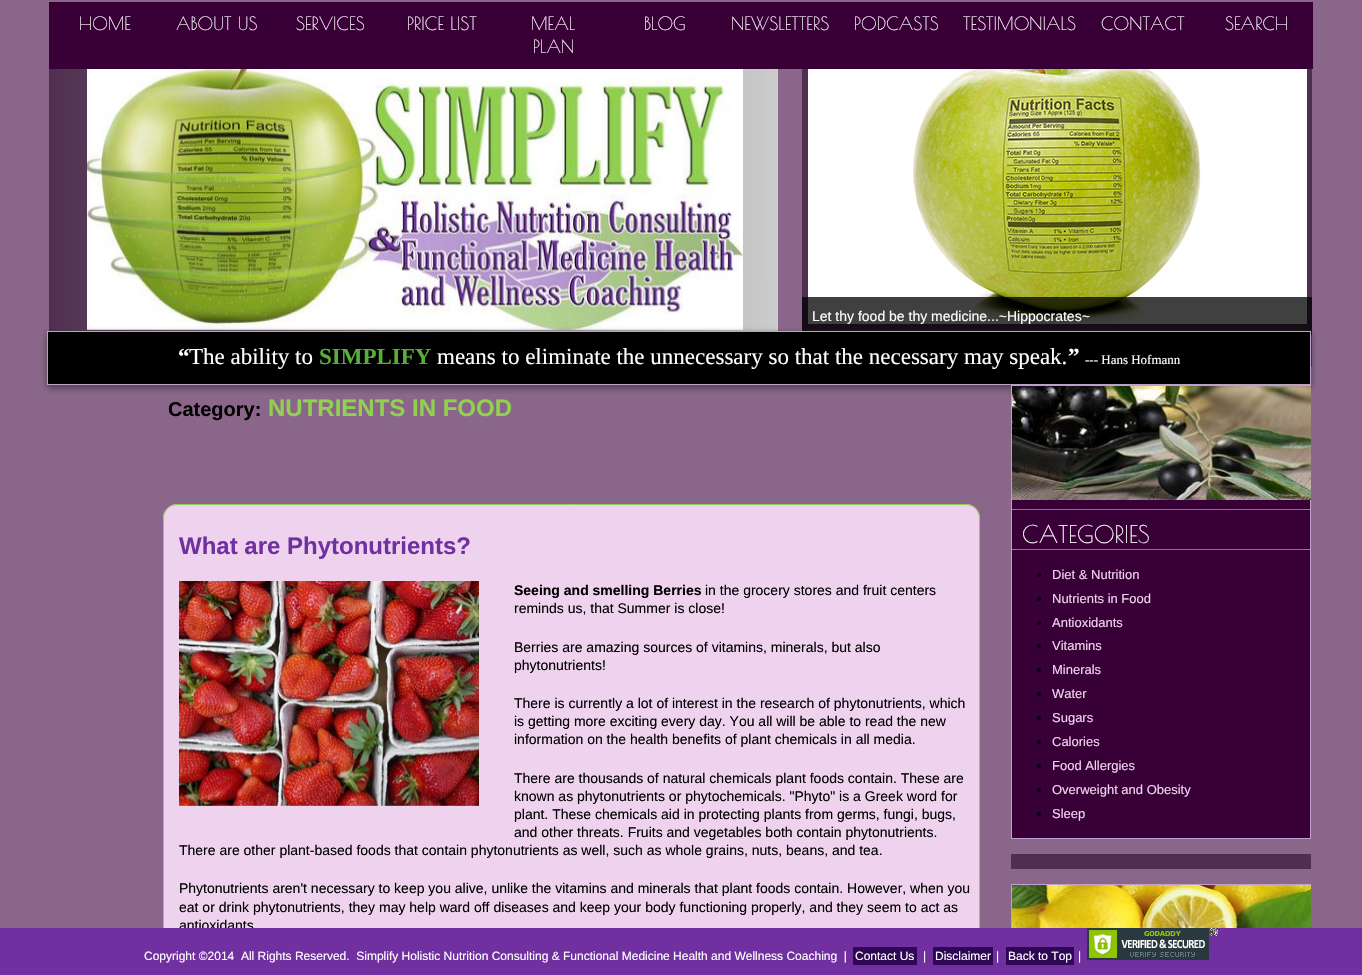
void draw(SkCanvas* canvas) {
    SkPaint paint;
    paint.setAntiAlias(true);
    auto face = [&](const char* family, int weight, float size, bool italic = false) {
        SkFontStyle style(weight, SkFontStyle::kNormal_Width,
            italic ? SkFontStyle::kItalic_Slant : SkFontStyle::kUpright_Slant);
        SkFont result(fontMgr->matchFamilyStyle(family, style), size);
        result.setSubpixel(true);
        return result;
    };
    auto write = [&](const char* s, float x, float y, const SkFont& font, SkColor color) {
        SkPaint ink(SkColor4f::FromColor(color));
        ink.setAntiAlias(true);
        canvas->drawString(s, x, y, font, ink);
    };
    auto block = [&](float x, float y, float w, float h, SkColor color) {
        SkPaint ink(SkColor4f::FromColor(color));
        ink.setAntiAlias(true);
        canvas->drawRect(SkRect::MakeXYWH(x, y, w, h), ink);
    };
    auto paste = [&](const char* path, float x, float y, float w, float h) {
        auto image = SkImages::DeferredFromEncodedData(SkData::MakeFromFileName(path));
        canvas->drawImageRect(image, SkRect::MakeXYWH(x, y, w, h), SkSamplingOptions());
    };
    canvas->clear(SkColorSetRGB(139, 102, 139));
    block(49, 2, 1264, 67, SkColorSetRGB(57, 0, 56));
    auto kFont1 = face("Poiret One", 400, 18);
    write("HOME", 79, 30, kFont1, SK_ColorWHITE);
    write("ABOUT US", 176, 30, kFont1, SK_ColorWHITE);
    write("SERVICES", 296, 30, kFont1, SK_ColorWHITE);
    write("PRICE LIST", 407, 30, kFont1, SK_ColorWHITE);
    write("MEAL", 531, 30, kFont1, SK_ColorWHITE);
    write("PLAN", 533, 53, kFont1, SK_ColorWHITE);
    write("BLOG", 644, 30, kFont1, SK_ColorWHITE);
    write("NEWSLETTERS", 731, 30, kFont1, SK_ColorWHITE);
    write("PODCASTS", 854, 30, kFont1, SK_ColorWHITE);
    write("TESTIMONIALS", 963, 30, kFont1, SK_ColorWHITE);
    write("CONTACT", 1101, 30, kFont1, SK_ColorWHITE);
    write("SEARCH", 1225, 30, kFont1, SK_ColorWHITE);
    {
        const SkColor colors[] = {SkColorSetRGB(79, 47, 79), SkColorSetRGB(204, 204, 204)};
        const float stops[] = {0, 1};
        const SkPoint ends[] = {{49, 200}, {778, 199}};
        paint.setShader(SkGradientShader::MakeLinear(ends, colors, stops, 2, SkTileMode::kClamp));
        paint.setAlpha(255);
    }
    canvas->drawRect(SkRect::MakeXYWH(49, 69, 729, 262), paint);
    paste("pic1.png", 87, 69, 656, 261);
    block(802, 69, 510, 298, SkColorSetRGB(79, 47, 79));
    paste("pic2.png", 808, 69, 499, 255);
    block(802, 297, 510, 38, SkColorSetARGB(191, 0, 0, 0));
    auto kFont2 = face("Liberation Sans", 400, 14);
    write("Let thy food be thy medicine...~Hippocrates~", 812, 321, kFont2, SK_ColorWHITE);
    paint.setShader(nullptr);
    paint.setColor(SkColorSetARGB(191, 50, 50, 50));
    paint.setMaskFilter(SkMaskFilter::MakeBlur(kNormal_SkBlurStyle, 3.5f));
    canvas->drawRect(SkRect::MakeXYWH(47, 334, 1264, 54), paint);
    paint.setMaskFilter(nullptr);
    paint.setColor(SK_ColorBLACK);
    canvas->drawRect(SkRect::MakeXYWH(47.5f, 331.5f, 1263, 53), paint);
    paint.setStyle(SkPaint::kStroke_Style);
    paint.setStrokeWidth(1);
    paint.setColor(SkColorSetRGB(189, 160, 203));
    canvas->drawRect(SkRect::MakeXYWH(47.5f, 331.5f, 1263, 53), paint);
    auto kFont3 = face("Liberation Serif", 700, 23);
    write("“", 178, 364, kFont3, SK_ColorWHITE);
    auto kFont4 = face("Liberation Serif", 400, 23);
    write("The ability to", 189, 364, kFont4, SK_ColorWHITE);
    write("SIMPLIFY", 319, 364, kFont3, SkColorSetRGB(85, 174, 58));
    write("means to eliminate the unnecessary so that the necessary may speak.", 437, 364, kFont4, SK_ColorWHITE);
    write("”", 1068, 364, kFont3, SK_ColorWHITE);
    auto kFont5 = face("Liberation Serif", 400, 13);
    write("--- Hans Hofmann", 1085, 364, kFont5, SK_ColorWHITE);
    auto kFont6 = face("Liberation Sans", 700, 20);
    write("Category:", 168, 416, kFont6, SK_ColorBLACK);
    auto kFont7 = face("Liberation Sans", 700, 24);
    write("NUTRIENTS IN FOOD", 268, 416, kFont7, SkColorSetRGB(146, 208, 80));
    paint.setStyle(SkPaint::kFill_Style);
    paint.setColor(SkColorSetRGB(238, 210, 238));
    canvas->drawPath(SkPathBuilder().moveTo(177, 504).lineTo(966, 504).cubicTo(973.5f, 504, 980, 510.5f, 980, 518).lineTo(980, 975).lineTo(163, 975).lineTo(163, 518).cubicTo(163, 510.5f, 169.5f, 504, 177, 504).close().detach(), paint);
    paint.setStyle(SkPaint::kStroke_Style);
    paint.setColor(SkColorSetRGB(146, 208, 80));
    canvas->drawRoundRect(SkRect::MakeXYWH(163.5f, 504.5f, 816, 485), 13.5f, 13.5f, paint);
    write("What are Phytonutrients?", 179, 554, kFont7, SkColorSetRGB(112, 48, 160));
    paste("pic3.png", 179, 581, 300, 225);
    auto kFont8 = face("Liberation Sans", 700, 14);
    write("Seeing and smelling Berries", 514, 595, kFont8, SK_ColorBLACK);
    write("in the grocery stores and fruit centers", 705, 595, kFont2, SK_ColorBLACK);
    write("reminds us, that Summer is close!", 514, 613, kFont2, SK_ColorBLACK);
    write("Berries are amazing sources of vitamins, minerals, but also", 514, 652, kFont2, SK_ColorBLACK);
    write("phytonutrients!", 514, 670, kFont2, SK_ColorBLACK);
    write("There is currently a lot of interest in the research of phytonutrients, which", 514, 708, kFont2, SK_ColorBLACK);
    write("is getting more exciting every day. You all will be able to read the new", 514, 726, kFont2, SK_ColorBLACK);
    write("information on the health benefits of plant chemicals in all media.", 514, 744, kFont2, SK_ColorBLACK);
    write("There are thousands of natural chemicals plant foods contain. These are", 514, 783, kFont2, SK_ColorBLACK);
    write("known as phytonutrients or phytochemicals. \"Phyto\" is a Greek word for", 514, 801, kFont2, SK_ColorBLACK);
    write("plant. These chemicals aid in protecting plants from germs, fungi, bugs,", 514, 819, kFont2, SK_ColorBLACK);
    write("and other threats. Fruits and vegetables both contain phytonutrients.", 514, 837, kFont2, SK_ColorBLACK);
    write("There are other plant-based foods that contain phytonutrients as well, such as whole grains, nuts, beans, and tea.", 179, 855, kFont2, SK_ColorBLACK);
    write("Phytonutrients aren't necessary to keep you alive, unlike the vitamins and minerals that plant foods contain. However, when you", 179, 893, kFont2, SK_ColorBLACK);
    write("eat or drink phytonutrients, they may help ward off diseases and keep your body functioning properly, and they seem to act as", 179, 912, kFont2, SK_ColorBLACK);
    write("antioxidants", 179, 930, kFont2, SK_ColorBLACK);
    block(1012, 500, 298, 338, SkColorSetRGB(57, 0, 56));
    paint.setColor(SkColorSetRGB(189, 160, 203));
    canvas->drawRect(SkRect::MakeXYWH(1011.5f, 385.5f, 299, 453), paint);
    paste("pic4.png", 1012, 386, 299, 114);
    block(1012, 509, 298, 1, SkColorSetRGB(156, 107, 152));
    block(1012, 549, 298, 1, SkColorSetRGB(156, 107, 152));
    auto kFont9 = face("Poiret One", 400, 24);
    write("CATEGORIES", 1022, 543, kFont9, SK_ColorWHITE);
    paint.setStyle(SkPaint::kFill_Style);
    paint.setColor(SK_ColorBLACK);
    canvas->drawCircle(1039, 575, 2, paint);
    auto kFont10 = face("Liberation Sans", 400, 13);
    write("Diet & Nutrition", 1052, 579, kFont10, SkColorSetRGB(238, 210, 238));
    canvas->drawCircle(1039, 599, 2, paint);
    write("Nutrients in Food", 1052, 603, kFont10, SkColorSetRGB(238, 210, 238));
    canvas->drawCircle(1039, 623, 2, paint);
    write("Antioxidants", 1052, 627, kFont10, SkColorSetRGB(238, 210, 238));
    canvas->drawCircle(1039, 646, 2, paint);
    write("Vitamins", 1052, 650, kFont10, SkColorSetRGB(238, 210, 238));
    canvas->drawCircle(1039, 670, 2, paint);
    write("Minerals", 1052, 674, kFont10, SkColorSetRGB(238, 210, 238));
    canvas->drawCircle(1039, 694, 2, paint);
    write("Water", 1052, 698, kFont10, SkColorSetRGB(238, 210, 238));
    canvas->drawCircle(1039, 718, 2, paint);
    write("Sugars", 1052, 722, kFont10, SkColorSetRGB(238, 210, 238));
    canvas->drawCircle(1039, 742, 2, paint);
    write("Calories", 1052, 746, kFont10, SkColorSetRGB(238, 210, 238));
    canvas->drawCircle(1039, 766, 2, paint);
    write("Food Allergies", 1052, 770, kFont10, SkColorSetRGB(238, 210, 238));
    canvas->drawCircle(1039, 790, 2, paint);
    write("Overweight and Obesity", 1052, 794, kFont10, SkColorSetRGB(238, 210, 238));
    canvas->drawCircle(1039, 814, 2, paint);
    write("Sleep", 1052, 818, kFont10, SkColorSetRGB(238, 210, 238));
    block(1011, 854, 300, 15, SkColorSetRGB(79, 47, 79));
    paint.setStyle(SkPaint::kStroke_Style);
    paint.setColor(SkColorSetRGB(189, 160, 203));
    canvas->drawRect(SkRect::MakeXYWH(1011.5f, 884.5f, 299, 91), paint);
    paste("pic5.png", 1012, 885, 299, 43);
    block(0, 928, 1362, 47, SkColorSetRGB(112, 48, 160));
    auto kFont11 = face("Liberation Sans", 400, 12);
    write("Copyright ©2014  All Rights Reserved.  Simplify Holistic Nutrition Consulting & Functional Medicine Health and Wellness Coaching  |", 144, 960, kFont11, SK_ColorWHITE);
    block(853, 947, 64, 18, SkColorSetRGB(46, 8, 84));
    write("Contact Us", 855, 960, kFont11, SK_ColorWHITE);
    write("|", 923, 960, kFont11, SK_ColorWHITE);
    block(933, 947, 60, 18, SkColorSetRGB(46, 8, 84));
    write("Disclaimer", 935, 960, kFont11, SK_ColorWHITE);
    write("|", 996, 960, kFont11, SK_ColorWHITE);
    block(1006, 947, 68, 18, SkColorSetRGB(46, 8, 84));
    write("Back to Top", 1008, 960, kFont11, SK_ColorWHITE);
    write("|", 1078, 960, kFont11, SK_ColorWHITE);
    paste("pic6.png", 1087, 928, 131, 32);
}
